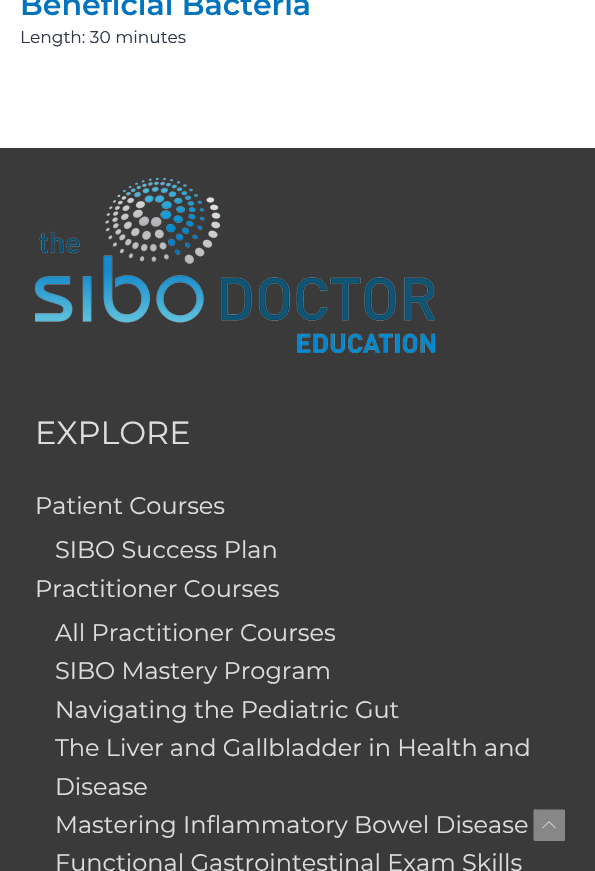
void draw(SkCanvas* canvas) {
    SkPaint paint;
    paint.setAntiAlias(true);
    auto face = [&](const char* family, int weight, float size, bool italic = false) {
        SkFontStyle style(weight, SkFontStyle::kNormal_Width,
            italic ? SkFontStyle::kItalic_Slant : SkFontStyle::kUpright_Slant);
        SkFont result(fontMgr->matchFamilyStyle(family, style), size);
        result.setSubpixel(true);
        return result;
    };
    auto write = [&](const char* s, float x, float y, const SkFont& font, SkColor color) {
        SkPaint ink(SkColor4f::FromColor(color));
        ink.setAntiAlias(true);
        canvas->drawString(s, x, y, font, ink);
    };
    auto block = [&](float x, float y, float w, float h, SkColor color) {
        SkPaint ink(SkColor4f::FromColor(color));
        ink.setAntiAlias(true);
        canvas->drawRect(SkRect::MakeXYWH(x, y, w, h), ink);
    };
    auto paste = [&](const char* path, float x, float y, float w, float h) {
        auto image = SkImages::DeferredFromEncodedData(SkData::MakeFromFileName(path));
        canvas->drawImageRect(image, SkRect::MakeXYWH(x, y, w, h), SkSamplingOptions());
    };
    canvas->clear(SK_ColorWHITE);
    auto kFont1 = face("Montserrat", 600, 30);
    write("Beneficial Bacteria", 20, 15, kFont1, SkColorSetRGB(2, 116, 190));
    auto kFont2 = face("Montserrat", 400, 17);
    write("Length: 30 minutes", 20, 43, kFont2, SkColorSetRGB(45, 55, 72));
    block(0, 148, 595, 723, SkColorSetRGB(58, 58, 58));
    paste("pic1.png", 35, 178, 400, 175);
    auto kFont3 = face("Montserrat", 400, 32);
    write("EXPLORE", 35, 444, kFont3, SkColorSetRGB(221, 221, 221));
    auto kFont4 = face("Montserrat", 400, 24);
    write("Patient Courses", 35, 514, kFont4, SkColorSetRGB(221, 221, 221));
    write("SIBO Success Plan", 55, 558, kFont4, SkColorSetRGB(221, 221, 221));
    write("Practitioner Courses", 35, 597, kFont4, SkColorSetRGB(221, 221, 221));
    write("All Practitioner Courses", 55, 641, kFont4, SkColorSetRGB(221, 221, 221));
    write("SIBO Mastery Program", 55, 679, kFont4, SkColorSetRGB(221, 221, 221));
    write("Navigating the Pediatric Gut", 55, 718, kFont4, SkColorSetRGB(221, 221, 221));
    write("The Liver and Gallbladder in Health and", 55, 756, kFont4, SkColorSetRGB(221, 221, 221));
    write("Disease", 55, 795, kFont4, SkColorSetRGB(221, 221, 221));
    write("Mastering Inflammatory Bowel Disease", 55, 833, kFont4, SkColorSetRGB(221, 221, 221));
    write("Functional Gastrointestinal Exam Skills", 55, 871, kFont4, SkColorSetRGB(221, 221, 221));
    paint.setColor(SkColorSetRGB(135, 135, 135));
    canvas->drawPath(SkPathBuilder().moveTo(564, 841).lineTo(539.5f, 841).cubicTo(532.5f, 841, 533.5f, 842, 533.5f, 835).lineTo(533.5f, 810.5f).cubicTo(533.5f, 808.5f, 537.5f, 809.5f, 539.5f, 809.5f).lineTo(564.5f, 809.5f).lineTo(565, 810.5f).lineTo(565, 840.5f).close().detach(), paint);
    paste("pic2.png", 542, 821, 14, 8);
}
